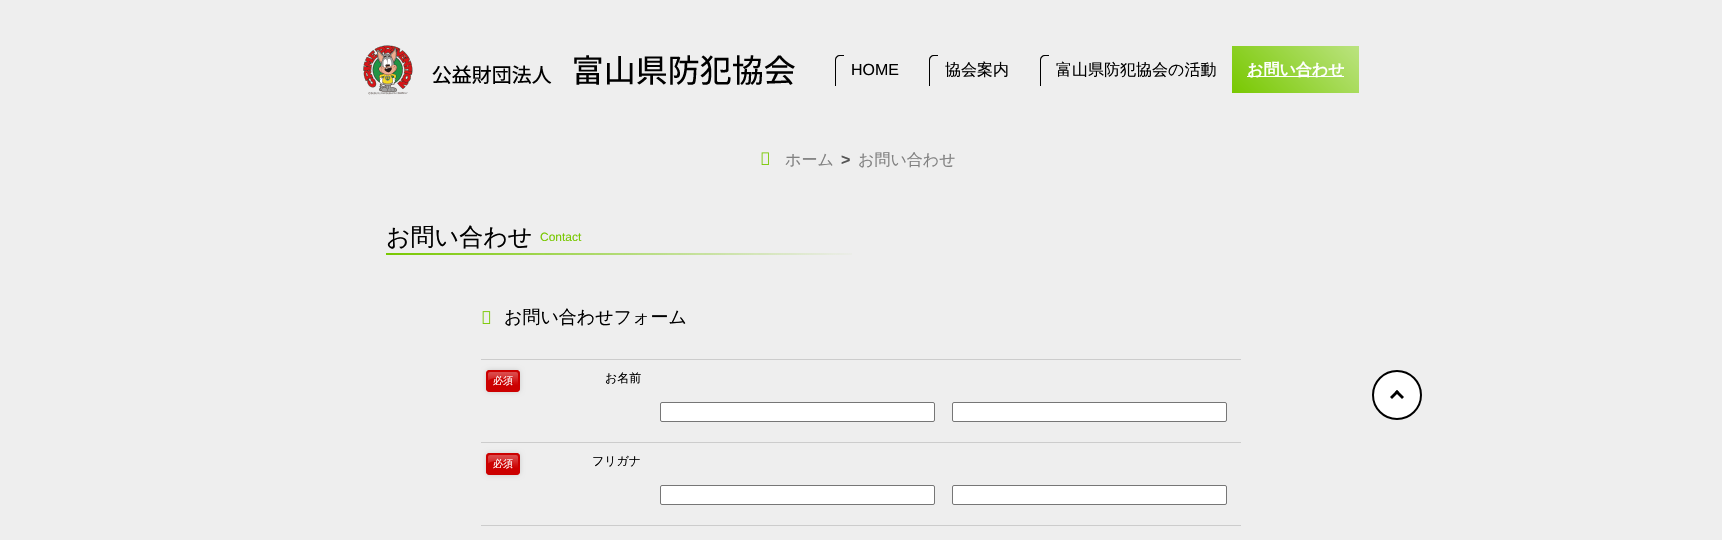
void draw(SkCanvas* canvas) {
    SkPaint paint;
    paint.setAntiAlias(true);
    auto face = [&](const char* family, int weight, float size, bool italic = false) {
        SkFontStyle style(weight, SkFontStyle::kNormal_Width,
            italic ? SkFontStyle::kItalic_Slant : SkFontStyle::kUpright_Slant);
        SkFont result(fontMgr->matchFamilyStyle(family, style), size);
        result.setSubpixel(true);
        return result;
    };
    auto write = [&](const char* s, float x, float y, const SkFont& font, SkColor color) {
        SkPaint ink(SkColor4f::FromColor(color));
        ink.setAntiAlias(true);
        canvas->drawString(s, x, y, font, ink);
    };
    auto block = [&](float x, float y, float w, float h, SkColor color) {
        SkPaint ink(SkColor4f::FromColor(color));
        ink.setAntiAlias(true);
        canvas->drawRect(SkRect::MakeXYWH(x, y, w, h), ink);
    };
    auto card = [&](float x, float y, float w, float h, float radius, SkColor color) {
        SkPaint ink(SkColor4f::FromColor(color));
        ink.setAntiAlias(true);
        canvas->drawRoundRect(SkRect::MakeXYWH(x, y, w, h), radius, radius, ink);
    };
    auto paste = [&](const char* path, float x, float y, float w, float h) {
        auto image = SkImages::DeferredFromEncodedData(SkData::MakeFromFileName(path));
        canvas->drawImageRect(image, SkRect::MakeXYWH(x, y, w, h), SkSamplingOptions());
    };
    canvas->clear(SkColorSetRGB(238, 238, 238));
    paste("pic1.png", 363, 45, 432, 50);
    paint.setColor(SK_ColorBLACK);
    canvas->drawPath(SkPathBuilder(SkPathFillType::kEvenOdd).moveTo(840, 55).lineTo(844, 55).lineTo(844, 86).lineTo(835, 86).lineTo(835, 60).cubicTo(835, 57, 837, 55, 840, 55).close().moveTo(840, 56).lineTo(844, 56).lineTo(844, 86).lineTo(836, 86).lineTo(836, 60).cubicTo(836, 58, 838, 56, 840, 56).close().detach(), paint);
    auto kFont1 = face("Liberation Sans", 400, 16);
    write("HOME", 851, 75, kFont1, SK_ColorBLACK);
    canvas->drawPath(SkPathBuilder(SkPathFillType::kEvenOdd).moveTo(934, 55).lineTo(938, 55).lineTo(938, 86).lineTo(929, 86).lineTo(929, 60).cubicTo(929, 57, 931, 55, 934, 55).close().moveTo(934, 56).lineTo(938, 56).lineTo(938, 86).lineTo(930, 86).lineTo(930, 60).cubicTo(930, 58, 932, 56, 934, 56).close().detach(), paint);
    auto kFont2 = face("WenQuanYi Zen Hei", 500, 16);
    write("協会案内", 945, 75, kFont2, SK_ColorBLACK);
    canvas->drawPath(SkPathBuilder(SkPathFillType::kEvenOdd).moveTo(1045, 55).lineTo(1049, 55).lineTo(1049, 86).lineTo(1040, 86).lineTo(1040, 60).cubicTo(1040, 57, 1042, 55, 1045, 55).close().moveTo(1045, 56).lineTo(1049, 56).lineTo(1049, 86).lineTo(1041, 86).lineTo(1041, 60).cubicTo(1041, 58, 1043, 56, 1045, 56).close().detach(), paint);
    write("富山県防犯協会の活動", 1056, 75, kFont2, SK_ColorBLACK);
    {
        const SkColor colors[] = {SkColorSetRGB(120, 200, 0), SkColorSetRGB(187, 227, 128)};
        const float stops[] = {0, 1};
        const SkPoint ends[] = {{1252, 113}, {1339, 26}};
        paint.setShader(SkGradientShader::MakeLinear(ends, colors, stops, 2, SkTileMode::kClamp));
        paint.setAlpha(255);
    }
    canvas->drawRect(SkRect::MakeXYWH(1232, 46, 127, 47), paint);
    block(1247, 76, 97, 1, SK_ColorWHITE);
    auto kFont3 = face("WenQuanYi Zen Hei", 700, 16);
    write("お問い合わせ", 1247, 75, kFont3, SK_ColorWHITE);
    paste("pic2.png", 761, 152, 8, 13);
    write("ホーム", 785, 165, kFont2, SkColorSetRGB(128, 128, 128));
    auto kFont4 = face("Liberation Sans", 700, 16);
    write(">", 841, 165, kFont4, SkColorSetRGB(85, 85, 85));
    write("お問い合わせ", 858, 165, kFont2, SkColorSetRGB(128, 128, 128));
    paste("pic3.png", 386, 253, 466, 2);
    auto kFont5 = face("WenQuanYi Zen Hei", 500, 24);
    write("お問い合わせ", 386, 245, kFont5, SK_ColorBLACK);
    auto kFont6 = face("Liberation Sans", 400, 12);
    write("Contact", 540, 241, kFont6, SkColorSetRGB(120, 200, 0));
    paste("pic4.png", 482, 311, 9, 13);
    auto kFont7 = face("WenQuanYi Zen Hei", 500, 18);
    write("お問い合わせフォーム", 504, 323, kFont7, SK_ColorBLACK);
    block(481, 359, 760, 1, SkColorSetRGB(204, 204, 204));
    paint.setShader(nullptr);
    paint.setColor(SK_ColorWHITE);
    canvas->drawRoundRect(SkRect::MakeXYWH(660.5f, 402.5f, 274, 19), 1.5f, 1.5f, paint);
    paint.setStyle(SkPaint::kStroke_Style);
    paint.setStrokeWidth(1);
    paint.setColor(SkColorSetRGB(118, 118, 118));
    canvas->drawRoundRect(SkRect::MakeXYWH(660.5f, 402.5f, 274, 19), 1.5f, 1.5f, paint);
    paint.setStyle(SkPaint::kFill_Style);
    paint.setColor(SK_ColorWHITE);
    canvas->drawRoundRect(SkRect::MakeXYWH(952.5f, 402.5f, 274, 19), 1.5f, 1.5f, paint);
    paint.setStyle(SkPaint::kStroke_Style);
    paint.setColor(SkColorSetRGB(118, 118, 118));
    canvas->drawRoundRect(SkRect::MakeXYWH(952.5f, 402.5f, 274, 19), 1.5f, 1.5f, paint);
    paint.setStyle(SkPaint::kFill_Style);
    paint.setColor(SkColorSetRGB(204, 204, 204));
    paint.setMaskFilter(SkMaskFilter::MakeBlur(kNormal_SkBlurStyle, 2.5f));
    canvas->drawRoundRect(SkRect::MakeXYWH(486, 370, 34, 22), 4, 4, paint);
    paint.setMaskFilter(nullptr);
    card(486, 370, 34, 22, 4, SkColorSetRGB(204, 0, 0));
    paste("pic5.png", 486, 372, 34, 20);
    paint.setStyle(SkPaint::kStroke_Style);
    paint.setStrokeWidth(2);
    paint.setColor(SkColorSetRGB(204, 0, 0));
    canvas->drawRoundRect(SkRect::MakeXYWH(487, 371, 32, 20), 3, 3, paint);
    auto kFont8 = face("WenQuanYi Zen Hei", 500, 10);
    write("必須", 493, 384, kFont8, SK_ColorWHITE);
    auto kFont9 = face("WenQuanYi Zen Hei", 500, 12);
    write("お名前", 605, 382, kFont9, SK_ColorBLACK);
    block(481, 442, 760, 1, SkColorSetRGB(204, 204, 204));
    paint.setStyle(SkPaint::kFill_Style);
    paint.setColor(SK_ColorWHITE);
    canvas->drawRoundRect(SkRect::MakeXYWH(660.5f, 485.5f, 274, 19), 1.5f, 1.5f, paint);
    paint.setStyle(SkPaint::kStroke_Style);
    paint.setStrokeWidth(1);
    paint.setColor(SkColorSetRGB(118, 118, 118));
    canvas->drawRoundRect(SkRect::MakeXYWH(660.5f, 485.5f, 274, 19), 1.5f, 1.5f, paint);
    paint.setStyle(SkPaint::kFill_Style);
    paint.setColor(SK_ColorWHITE);
    canvas->drawRoundRect(SkRect::MakeXYWH(952.5f, 485.5f, 274, 19), 1.5f, 1.5f, paint);
    paint.setStyle(SkPaint::kStroke_Style);
    paint.setColor(SkColorSetRGB(118, 118, 118));
    canvas->drawRoundRect(SkRect::MakeXYWH(952.5f, 485.5f, 274, 19), 1.5f, 1.5f, paint);
    paint.setStyle(SkPaint::kFill_Style);
    paint.setColor(SkColorSetRGB(204, 204, 204));
    paint.setMaskFilter(SkMaskFilter::MakeBlur(kNormal_SkBlurStyle, 2.5f));
    canvas->drawRoundRect(SkRect::MakeXYWH(486, 453, 34, 22), 4, 4, paint);
    paint.setMaskFilter(nullptr);
    card(486, 453, 34, 22, 4, SkColorSetRGB(204, 0, 0));
    paste("pic5.png", 486, 455, 34, 20);
    paint.setStyle(SkPaint::kStroke_Style);
    paint.setStrokeWidth(2);
    paint.setColor(SkColorSetRGB(204, 0, 0));
    canvas->drawRoundRect(SkRect::MakeXYWH(487, 454, 32, 20), 3, 3, paint);
    write("必須", 493, 467, kFont8, SK_ColorWHITE);
    write("フリガナ", 592, 465, kFont9, SK_ColorBLACK);
    block(481, 525, 760, 1, SkColorSetRGB(204, 204, 204));
    paint.setStyle(SkPaint::kFill_Style);
    paint.setColor(SK_ColorWHITE);
    canvas->drawCircle(1397, 395, 24, paint);
    paint.setStyle(SkPaint::kStroke_Style);
    paint.setColor(SK_ColorBLACK);
    canvas->drawCircle(1397, 395, 24, paint);
    paint.setStyle(SkPaint::kFill_Style);
    canvas->drawPath(SkPathBuilder().moveTo(1390, 397).lineTo(1397, 390).lineTo(1399, 392).lineTo(1392, 399).close().detach(), paint);
    canvas->drawPath(SkPathBuilder().moveTo(1395, 392).lineTo(1397, 390).lineTo(1404, 397).lineTo(1402, 399).close().detach(), paint);
}
